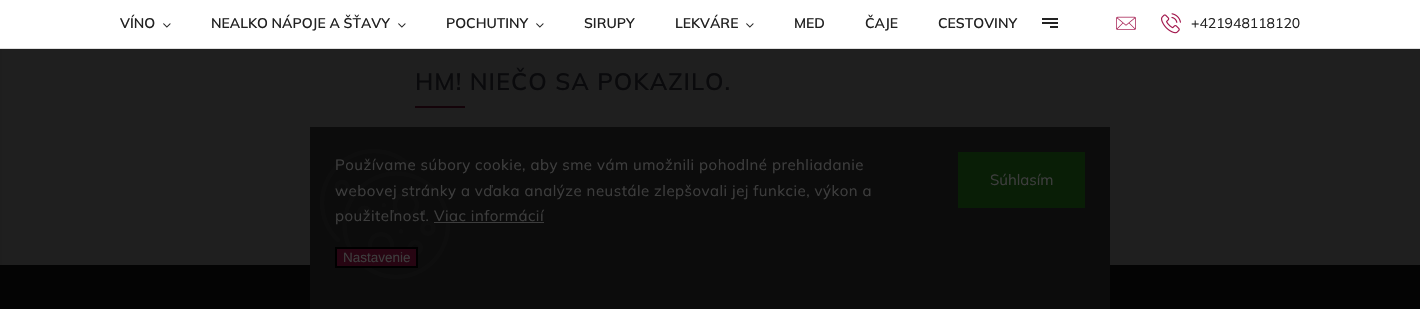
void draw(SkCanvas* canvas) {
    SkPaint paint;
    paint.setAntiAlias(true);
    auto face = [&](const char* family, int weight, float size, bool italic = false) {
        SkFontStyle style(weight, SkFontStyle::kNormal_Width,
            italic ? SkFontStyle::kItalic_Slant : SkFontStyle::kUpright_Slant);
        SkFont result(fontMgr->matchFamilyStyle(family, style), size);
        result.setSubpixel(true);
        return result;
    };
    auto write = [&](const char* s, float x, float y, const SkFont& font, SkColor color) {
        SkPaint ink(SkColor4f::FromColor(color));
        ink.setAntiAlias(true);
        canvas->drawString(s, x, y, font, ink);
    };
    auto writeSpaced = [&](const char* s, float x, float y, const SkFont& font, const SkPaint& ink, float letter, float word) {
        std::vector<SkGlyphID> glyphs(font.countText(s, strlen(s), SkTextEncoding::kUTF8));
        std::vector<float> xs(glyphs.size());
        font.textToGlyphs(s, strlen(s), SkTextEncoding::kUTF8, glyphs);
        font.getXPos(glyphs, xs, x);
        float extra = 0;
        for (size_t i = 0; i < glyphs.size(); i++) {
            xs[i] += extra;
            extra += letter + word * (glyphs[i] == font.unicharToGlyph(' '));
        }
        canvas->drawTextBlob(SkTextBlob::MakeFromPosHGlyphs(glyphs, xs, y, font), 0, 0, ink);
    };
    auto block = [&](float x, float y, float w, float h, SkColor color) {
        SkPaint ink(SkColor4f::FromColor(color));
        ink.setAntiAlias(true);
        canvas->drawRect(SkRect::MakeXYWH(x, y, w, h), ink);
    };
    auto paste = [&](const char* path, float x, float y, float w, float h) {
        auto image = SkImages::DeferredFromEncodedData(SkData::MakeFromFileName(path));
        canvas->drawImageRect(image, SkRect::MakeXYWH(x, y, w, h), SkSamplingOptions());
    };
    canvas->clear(SkColorSetRGB(61, 61, 61));
    block(415, 106, 50, 2, SkColorSetRGB(39, 5, 18));
    block(0, 265, 1420, 44, SkColorSetRGB(8, 8, 8));
    paint.setColor(SkColorSetARGB(128, 0, 0, 0));
    paint.setMaskFilter(SkMaskFilter::MakeBlur(kNormal_SkBlurStyle, 80));
    canvas->drawRect(SkRect::MakeXYWH(-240, -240, 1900, 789), paint);
    paint.setMaskFilter(nullptr);
    block(0, 0, 1420, 48, SK_ColorWHITE);
    block(0, 48, 1420, 1, SkColorSetRGB(223, 223, 223));
    auto kFont1 = face("Mulish", 600, 14);
    write("VÍNO", 120, 28, kFont1, SkColorSetRGB(34, 34, 34));
    paste("pic1.png", 163, 23, 8, 5);
    write("NEALKO NÁPOJE A ŠŤAVY", 211, 28, kFont1, SkColorSetRGB(34, 34, 34));
    paste("pic1.png", 398, 23, 8, 5);
    write("POCHUTINY", 446, 28, kFont1, SkColorSetRGB(34, 34, 34));
    paste("pic1.png", 536, 23, 8, 5);
    write("SIRUPY", 584, 28, kFont1, SkColorSetRGB(34, 34, 34));
    write("LEKVÁRE", 675, 28, kFont1, SkColorSetRGB(34, 34, 34));
    paste("pic1.png", 746, 23, 8, 5);
    write("MED", 794, 28, kFont1, SkColorSetRGB(34, 34, 34));
    write("ČAJE", 865, 28, kFont1, SkColorSetRGB(34, 34, 34));
    write("CESTOVINY", 938, 28, kFont1, SkColorSetRGB(34, 34, 34));
    paste("pic2.png", 1042, 18, 16, 10);
    paste("pic3.png", 1116, 16, 20, 14);
    paste("pic4.png", 1161, 13, 20, 21);
    auto kFont2 = face("Mulish", 400, 14);
    write("+421948118120", 1191, 28, kFont2, SkColorSetRGB(34, 34, 34));
    auto kFont3 = face("Mulish", 600, 23.75f);
    paint.setColor(SkColorSetRGB(10, 10, 12));
    writeSpaced("HM! NIEČO SA POKAZILO.", 415, 90, kFont3, paint, 1, 0);
    block(310, 127, 800, 182, SkColorSetRGB(12, 12, 12));
    paste("pic5.png", 320, 149, 130, 130);
    auto kFont4 = face("Mulish", 400, 15);
    paint.setColor(SkColorSetRGB(61, 61, 61));
    writeSpaced("Používame súbory cookie, aby sme vám umožnili pohodlné prehliadanie", 335, 170, kFont4, paint, 0.5f, 0);
    writeSpaced("webovej stránky a vďaka analýze neustále zlepšovali jej funkcie, výkon a", 335, 196, kFont4, paint, 0.5f, 0);
    writeSpaced("použiteľnosť. Viac informácií", 335, 221, kFont4, paint, 0.5f, 0);
    block(434, 222, 110, 1, SkColorSetRGB(61, 61, 61));
    paint.setColor(SkColorSetRGB(39, 5, 18));
    canvas->drawRect(SkRect::MakeXYWH(336, 248, 81, 19), paint);
    paint.setStyle(SkPaint::kStroke_Style);
    paint.setStrokeWidth(2);
    paint.setColor(SK_ColorBLACK);
    canvas->drawRect(SkRect::MakeXYWH(336, 248, 81, 19), paint);
    auto kFont5 = face("Liberation Sans", 400, 13.5f);
    write("Nastavenie", 343, 262, kFont5, SkColorSetRGB(61, 61, 61));
    block(958, 152, 127, 56, SkColorSetRGB(9, 30, 6));
    write("Súhlasím", 990, 185, kFont4, SkColorSetRGB(61, 61, 61));
}
